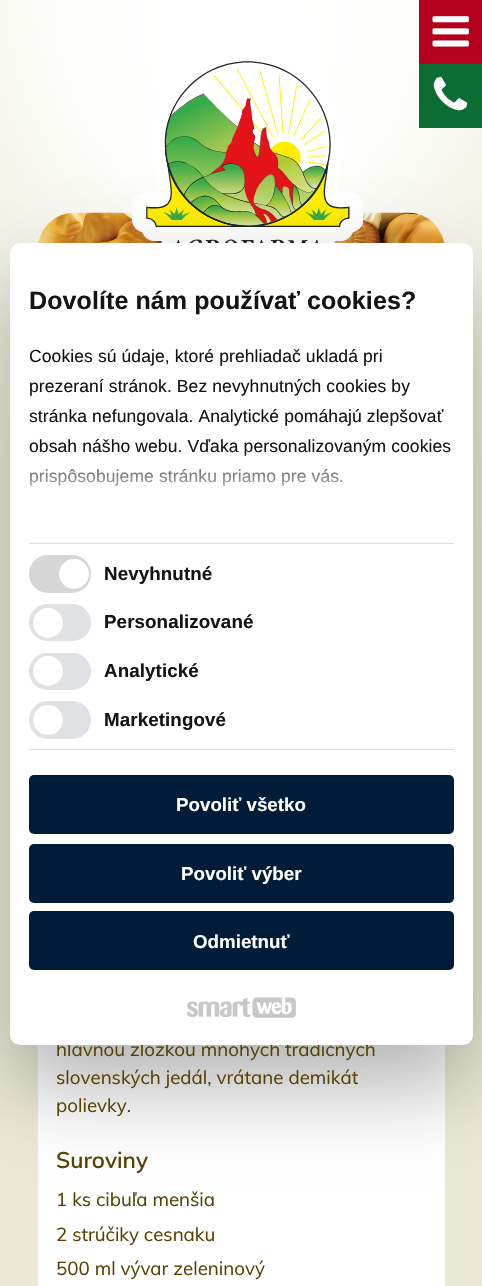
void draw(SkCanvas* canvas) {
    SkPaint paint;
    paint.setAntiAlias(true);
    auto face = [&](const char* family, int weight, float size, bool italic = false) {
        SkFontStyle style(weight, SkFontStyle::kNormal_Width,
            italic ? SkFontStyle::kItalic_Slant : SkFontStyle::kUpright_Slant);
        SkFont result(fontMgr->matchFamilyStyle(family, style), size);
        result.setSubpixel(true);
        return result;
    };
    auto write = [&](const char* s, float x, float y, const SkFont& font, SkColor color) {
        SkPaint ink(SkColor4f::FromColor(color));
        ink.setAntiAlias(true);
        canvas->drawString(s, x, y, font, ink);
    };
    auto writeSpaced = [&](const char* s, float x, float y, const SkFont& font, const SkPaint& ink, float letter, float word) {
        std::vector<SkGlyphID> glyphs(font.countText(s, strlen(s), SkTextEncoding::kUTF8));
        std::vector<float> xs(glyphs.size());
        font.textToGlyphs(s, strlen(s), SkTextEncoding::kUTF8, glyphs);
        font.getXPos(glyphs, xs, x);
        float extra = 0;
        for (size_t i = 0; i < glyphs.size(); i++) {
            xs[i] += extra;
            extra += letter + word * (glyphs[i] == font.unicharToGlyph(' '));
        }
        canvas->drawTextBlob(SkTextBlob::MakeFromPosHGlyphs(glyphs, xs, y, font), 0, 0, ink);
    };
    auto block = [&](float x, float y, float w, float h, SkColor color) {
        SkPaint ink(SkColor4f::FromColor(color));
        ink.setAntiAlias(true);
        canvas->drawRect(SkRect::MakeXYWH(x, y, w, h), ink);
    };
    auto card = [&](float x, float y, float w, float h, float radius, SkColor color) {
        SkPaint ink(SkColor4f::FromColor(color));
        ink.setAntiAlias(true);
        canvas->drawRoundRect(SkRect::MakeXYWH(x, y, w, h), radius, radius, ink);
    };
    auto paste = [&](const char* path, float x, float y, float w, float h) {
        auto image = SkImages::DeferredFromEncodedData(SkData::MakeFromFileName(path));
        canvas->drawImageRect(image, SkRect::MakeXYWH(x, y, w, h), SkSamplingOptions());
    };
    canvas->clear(SkColorSetRGB(236, 234, 214));
    paste("pic1.png", 0, 0, 482, 523);
    block(419, 0, 63, 64, SkColorSetRGB(179, 1, 27));
    paste("pic2.png", 432, 16, 37, 31);
    block(419, 64, 63, 64, SkColorSetRGB(11, 108, 52));
    paste("pic3.png", 433, 76, 35, 35);
    card(38, 213, 407, 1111, 38, SK_ColorWHITE);
    paste("pic7.png", 38, 212, 407, 31);
    paste("pic4.png", 131, 61, 233, 182);
    paint.setColor(SkColorSetARGB(77, 0, 0, 0));
    paint.setMaskFilter(SkMaskFilter::MakeBlur(kNormal_SkBlurStyle, 42.5f));
    canvas->drawRoundRect(SkRect::MakeXYWH(10, 283, 463, 802), 10, 10, paint);
    paint.setMaskFilter(nullptr);
    auto kFont1 = face("Muli", 400, 18.75f);
    write("hlavnou zložkou mnohých tradičných", 56, 1056, kFont1, SkColorSetRGB(87, 65, 0));
    card(10, 243, 463, 802, 10, SK_ColorWHITE);
    auto kFont2 = face("Liberation Sans", 700, 25);
    paint.setColor(SkColorSetRGB(20, 20, 20));
    writeSpaced("Dovolíte nám používať cookies?", 29, 309, kFont2, paint, 0.1f, 0);
    auto kFont3 = face("Liberation Sans", 400, 17.5f);
    writeSpaced("Cookies sú údaje, ktoré prehliadač ukladá pri", 29, 362, kFont3, paint, 0.1f, 0);
    writeSpaced("prezeraní stránok. Bez nevyhnutných cookies by", 29, 392, kFont3, paint, 0.1f, 0);
    writeSpaced("stránka nefungovala. Analytické pomáhajú zlepšovať", 29, 422, kFont3, paint, 0.1f, 0);
    writeSpaced("obsah nášho webu. Vďaka personalizovaným cookies", 29, 452, kFont3, paint, 0.1f, 0);
    writeSpaced("prispôsobujeme stránku priamo pre vás.", 29, 482, kFont3, paint, 0.1f, 0);
    {
        const SkColor colors[] = {SK_ColorWHITE, SkColorSetARGB(204, 255, 255, 255), SkColorSetARGB(0, 255, 255, 255)};
        const float stops[] = {0, 0.5f, 1};
        const SkPoint ends[] = {{241, 542}, {241, 449}};
        paint.setShader(SkGradientShader::MakeLinear(ends, colors, stops, 3, SkTileMode::kClamp));
        paint.setAlpha(255);
    }
    canvas->drawRect(SkRect::MakeXYWH(29, 450, 422, 36), paint);
    block(29, 543, 425, 1, SkColorSetRGB(221, 221, 221));
    block(29, 749, 425, 1, SkColorSetRGB(221, 221, 221));
    card(29, 555, 62, 38, 19, SkColorSetRGB(214, 214, 214));
    paint.setShader(nullptr);
    paint.setColor(SK_ColorWHITE);
    canvas->drawCircle(74, 574, 15, paint);
    auto kFont4 = face("Liberation Sans", 700, 18.75f);
    paint.setColor(SkColorSetRGB(20, 20, 20));
    writeSpaced("Nevyhnutné", 104, 580, kFont4, paint, 0.1f, 0);
    card(29, 604, 62, 37, 18.5f, SkColorSetRGB(223, 225, 228));
    paint.setColor(SK_ColorWHITE);
    canvas->drawCircle(48, 623, 15, paint);
    paint.setColor(SkColorSetRGB(20, 20, 20));
    writeSpaced("Personalizované", 104, 628, kFont4, paint, 0.1f, 0);
    card(29, 653, 62, 37, 18.5f, SkColorSetRGB(223, 225, 228));
    paint.setColor(SK_ColorWHITE);
    canvas->drawCircle(48, 671, 15, paint);
    paint.setColor(SkColorSetRGB(20, 20, 20));
    writeSpaced("Analytické", 104, 677, kFont4, paint, 0.1f, 0);
    card(29, 701, 62, 38, 19, SkColorSetRGB(223, 225, 228));
    paint.setColor(SK_ColorWHITE);
    canvas->drawCircle(48, 720, 15, paint);
    paint.setColor(SkColorSetRGB(20, 20, 20));
    writeSpaced("Marketingové", 104, 726, kFont4, paint, 0.1f, 0);
    card(29, 775, 425, 59, 5, SkColorSetRGB(1, 28, 56));
    write("Povoliť všetko", 176, 811, kFont4, SK_ColorWHITE);
    card(29, 844, 425, 59, 5, SkColorSetRGB(1, 28, 56));
    write("Povoliť výber", 181, 880, kFont4, SK_ColorWHITE);
    card(29, 911, 425, 59, 5, SkColorSetRGB(1, 28, 56));
    write("Odmietnuť", 193, 948, kFont4, SK_ColorWHITE);
    paste("pic5.png", 187, 997, 64, 20);
    paste("pic6.png", 252, 997, 44, 21);
    write("slovenských jedál, vrátane demikát", 56, 1084, kFont1, SkColorSetRGB(87, 65, 0));
    write("polievky.", 56, 1112, kFont1, SkColorSetRGB(87, 65, 0));
    auto kFont5 = face("Muli", 600, 22.5f);
    write("Suroviny", 56, 1168, kFont5, SkColorSetRGB(87, 65, 0));
    write("1 ks cibuľa menšia", 56, 1206, kFont1, SkColorSetRGB(87, 65, 0));
    write("2 strúčiky cesnaku", 56, 1241, kFont1, SkColorSetRGB(87, 65, 0));
    write("500 ml vývar zeleninový", 56, 1275, kFont1, SkColorSetRGB(87, 65, 0));
}
